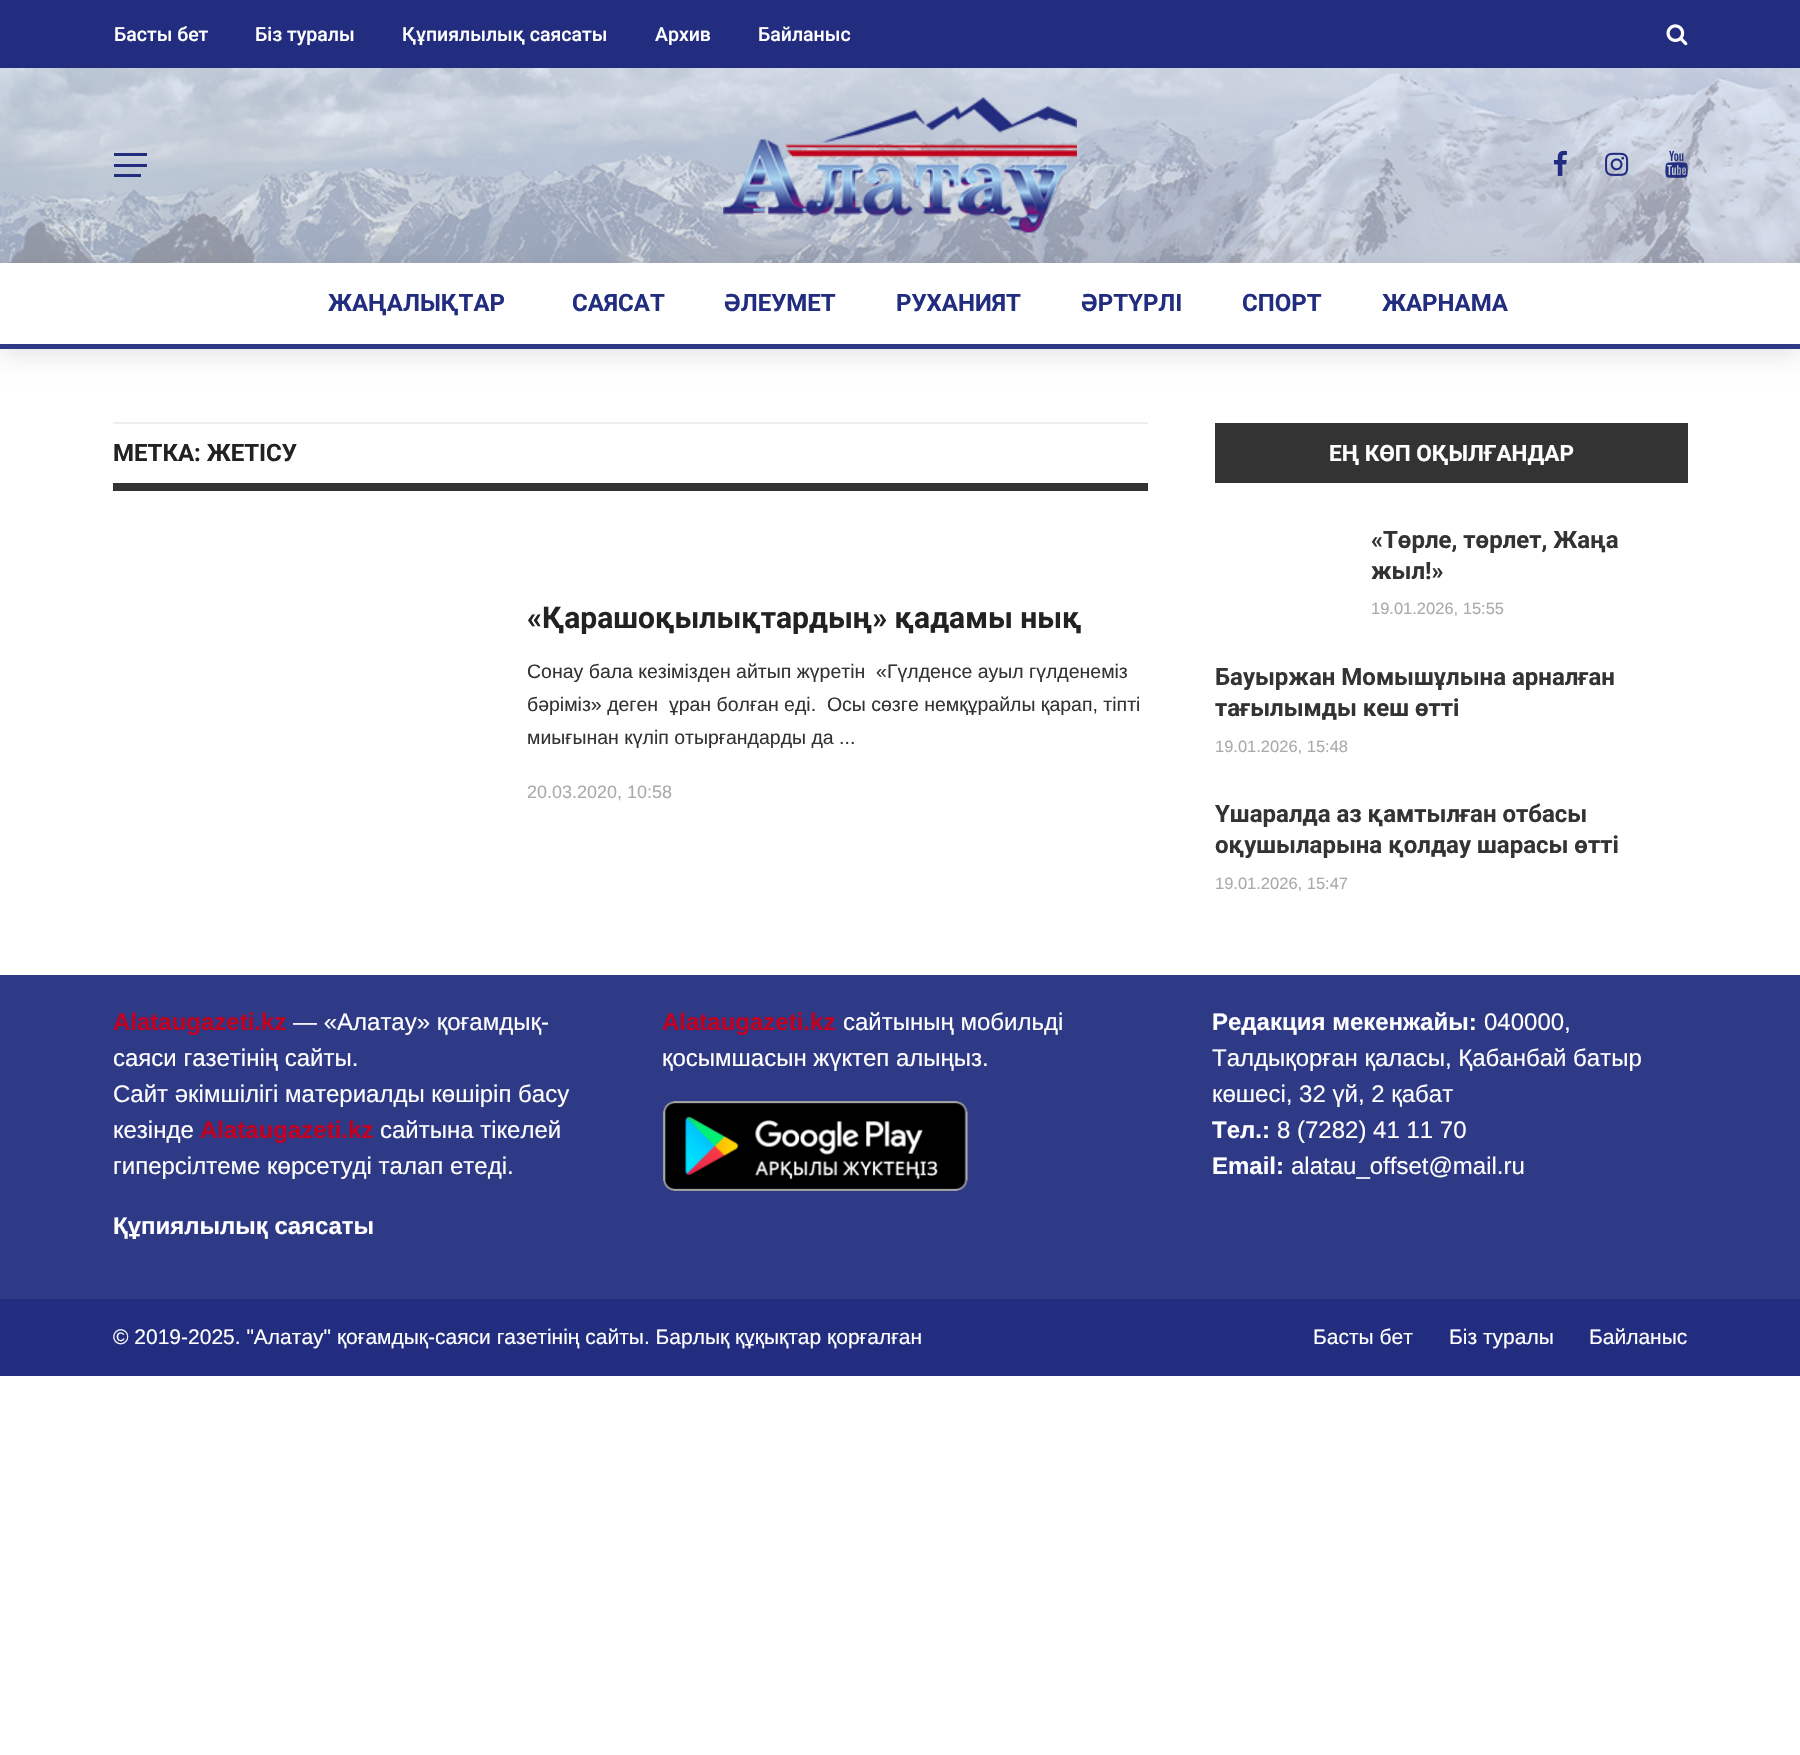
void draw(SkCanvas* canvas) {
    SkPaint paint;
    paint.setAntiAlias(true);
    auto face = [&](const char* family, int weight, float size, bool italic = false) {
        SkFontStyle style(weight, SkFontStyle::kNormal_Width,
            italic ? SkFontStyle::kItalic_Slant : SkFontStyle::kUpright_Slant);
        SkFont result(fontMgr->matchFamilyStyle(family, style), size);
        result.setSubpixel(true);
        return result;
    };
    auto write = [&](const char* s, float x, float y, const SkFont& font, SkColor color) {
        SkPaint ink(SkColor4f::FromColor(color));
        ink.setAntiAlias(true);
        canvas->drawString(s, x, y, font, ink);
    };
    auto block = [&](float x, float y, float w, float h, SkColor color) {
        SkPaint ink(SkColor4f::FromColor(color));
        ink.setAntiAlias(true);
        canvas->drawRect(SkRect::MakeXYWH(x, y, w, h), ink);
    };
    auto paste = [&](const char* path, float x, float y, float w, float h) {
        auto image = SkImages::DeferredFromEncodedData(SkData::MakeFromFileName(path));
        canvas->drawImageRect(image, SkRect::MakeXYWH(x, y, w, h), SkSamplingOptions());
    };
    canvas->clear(SK_ColorWHITE);
    paste("pic1.png", 0, 68, 1800, 195);
    block(0, 0, 1800, 68, SkColorSetRGB(34, 45, 127));
    auto kFont1 = face("Roboto", 500, 19.5f);
    write("Басты бет", 114, 41, kFont1, SK_ColorWHITE);
    write("Біз туралы", 255, 41, kFont1, SK_ColorWHITE);
    write("Құпиялылық саясаты", 402, 41, kFont1, SK_ColorWHITE);
    write("Архив", 655, 41, kFont1, SK_ColorWHITE);
    write("Байланыс", 758, 41, kFont1, SK_ColorWHITE);
    paste("pic2.png", 1666, 24, 22, 22);
    block(114, 153, 33, 3, SkColorSetRGB(34, 45, 127));
    block(114, 164, 33, 3, SkColorSetRGB(34, 45, 127));
    block(114, 174, 27, 3, SkColorSetRGB(34, 45, 127));
    paste("pic3.png", 723, 97, 354, 136);
    paste("pic4.png", 1553, 150, 14, 26);
    paste("pic5.png", 1605, 152, 24, 24);
    paste("pic6.png", 1665, 150, 23, 28);
    paint.setColor(SkColorSetARGB(26, 0, 0, 0));
    paint.setMaskFilter(SkMaskFilter::MakeBlur(kNormal_SkBlurStyle, 11));
    canvas->drawRect(SkRect::MakeXYWH(0, 270, 1800, 86), paint);
    paint.setMaskFilter(nullptr);
    block(0, 263, 1800, 81, SK_ColorWHITE);
    block(0, 344, 1800, 5, SkColorSetRGB(47, 58, 135));
    auto kFont2 = face("Roboto", 700, 24);
    write("ЖАҢАЛЫҚТАР", 328, 311, kFont2, SkColorSetRGB(34, 45, 127));
    write("САЯСАТ", 572, 311, kFont2, SkColorSetRGB(34, 45, 127));
    write("ӘЛЕУМЕТ", 724, 311, kFont2, SkColorSetRGB(34, 45, 127));
    write("РУХАНИЯТ", 896, 311, kFont2, SkColorSetRGB(34, 45, 127));
    write("ӘРТҮРЛІ", 1081, 311, kFont2, SkColorSetRGB(34, 45, 127));
    write("СПОРТ", 1242, 311, kFont2, SkColorSetRGB(34, 45, 127));
    write("ЖАРНАМА", 1382, 311, kFont2, SkColorSetRGB(34, 45, 127));
    block(113, 422, 1035, 2, SkColorSetRGB(238, 238, 238));
    write("МЕТКА: ЖЕТІСУ", 113, 461, kFont2, SkColorSetRGB(34, 34, 34));
    block(113, 483, 1035, 8, SkColorSetRGB(51, 51, 51));
    auto kFont3 = face("Roboto", 700, 30);
    write("«Қарашоқылықтардың» қадамы нық", 527, 628, kFont3, SkColorSetRGB(34, 34, 34));
    auto kFont4 = face("Arimo", 400, 19.5f);
    write("Сонау бала кезімізден айтып жүретін  «Гүлденсе ауыл гүлденеміз", 527, 678, kFont4, SkColorSetRGB(51, 51, 51));
    write("бәріміз» деген  ұран болған еді.  Осы сөзге немқұрайлы қарап, тіпті", 527, 711, kFont4, SkColorSetRGB(51, 51, 51));
    write("миығынан күліп отырғандарды да ...", 527, 744, kFont4, SkColorSetRGB(51, 51, 51));
    auto kFont5 = face("Arimo", 400, 18);
    write("20.03.2020, 10:58", 527, 798, kFont5, SkColorSetRGB(170, 170, 170));
    block(1215, 423, 473, 60, SkColorSetRGB(51, 51, 51));
    auto kFont6 = face("Roboto", 700, 22.5f);
    write("ЕҢ КӨП ОҚЫЛҒАНДАР", 1329, 461, kFont6, SK_ColorWHITE);
    write("«Төрле, төрлет, Жаңа", 1371, 548, kFont2, SkColorSetRGB(51, 51, 51));
    write("жыл!»", 1371, 579, kFont2, SkColorSetRGB(51, 51, 51));
    auto kFont7 = face("Arimo", 400, 16.5f);
    write("19.01.2026, 15:55", 1371, 614, kFont7, SkColorSetRGB(170, 170, 170));
    write("Бауыржан Момышұлына арналған", 1215, 685, kFont2, SkColorSetRGB(51, 51, 51));
    write("тағылымды кеш өтті", 1215, 716, kFont2, SkColorSetRGB(51, 51, 51));
    write("19.01.2026, 15:48", 1215, 752, kFont7, SkColorSetRGB(170, 170, 170));
    write("Үшаралда аз қамтылған отбасы", 1215, 822, kFont2, SkColorSetRGB(51, 51, 51));
    write("оқушыларына қолдау шарасы өтті", 1215, 853, kFont2, SkColorSetRGB(51, 51, 51));
    write("19.01.2026, 15:47", 1215, 889, kFont7, SkColorSetRGB(170, 170, 170));
    block(0, 975, 1800, 324, SkColorSetRGB(47, 58, 135));
    auto kFont8 = face("Arimo", 700, 24);
    write("Alataugazeti.kz", 113, 1030, kFont8, SkColorSetRGB(193, 0, 31));
    auto kFont9 = face("Arimo", 400, 24);
    write("— «Алатау» қоғамдық-", 293, 1030, kFont9, SK_ColorWHITE);
    write("саяси газетінің сайты.", 113, 1066, kFont9, SK_ColorWHITE);
    write("Сайт әкімшілігі материалды көшіріп басу", 113, 1102, kFont9, SK_ColorWHITE);
    write("кезінде", 113, 1138, kFont9, SK_ColorWHITE);
    write("Alataugazeti.kz", 200, 1138, kFont8, SkColorSetRGB(193, 0, 31));
    write("сайтына тікелей", 380, 1138, kFont9, SK_ColorWHITE);
    write("гиперсілтеме көрсетуді талап етеді.", 113, 1174, kFont9, SK_ColorWHITE);
    write("Құпиялылық саясаты", 113, 1234, kFont8, SK_ColorWHITE);
    write("Alataugazeti.kz", 662, 1030, kFont8, SkColorSetRGB(193, 0, 31));
    write("сайтының мобильді", 843, 1030, kFont9, SK_ColorWHITE);
    write("қосымшасын жүктеп алыңыз.", 662, 1066, kFont9, SK_ColorWHITE);
    paste("pic7.png", 663, 1101, 305, 90);
    write("Редакция мекенжайы:", 1212, 1030, kFont8, SK_ColorWHITE);
    write("040000,", 1484, 1030, kFont9, SK_ColorWHITE);
    write("Талдықорған қаласы, Қабанбай батыр", 1212, 1066, kFont9, SK_ColorWHITE);
    write("көшесі, 32 үй, 2 қабат", 1212, 1102, kFont9, SK_ColorWHITE);
    write("Тел.:", 1212, 1138, kFont8, SK_ColorWHITE);
    write("8 (7282) 41 11 70", 1277, 1138, kFont9, SK_ColorWHITE);
    write("Email:", 1212, 1174, kFont8, SK_ColorWHITE);
    write("alatau_offset@mail.ru", 1291, 1174, kFont9, SK_ColorWHITE);
    block(0, 1299, 1800, 77, SkColorSetRGB(34, 45, 127));
    auto kFont10 = face("Arimo", 400, 21);
    write("© 2019-2025. \"Алатау\" қоғамдық-саяси газетінің сайты. Барлық құқықтар қорғалған", 113, 1344, kFont10, SK_ColorWHITE);
    write("Басты бет", 1313, 1344, kFont10, SK_ColorWHITE);
    write("Біз туралы", 1449, 1344, kFont10, SK_ColorWHITE);
    write("Байланыс", 1589, 1344, kFont10, SK_ColorWHITE);
}
